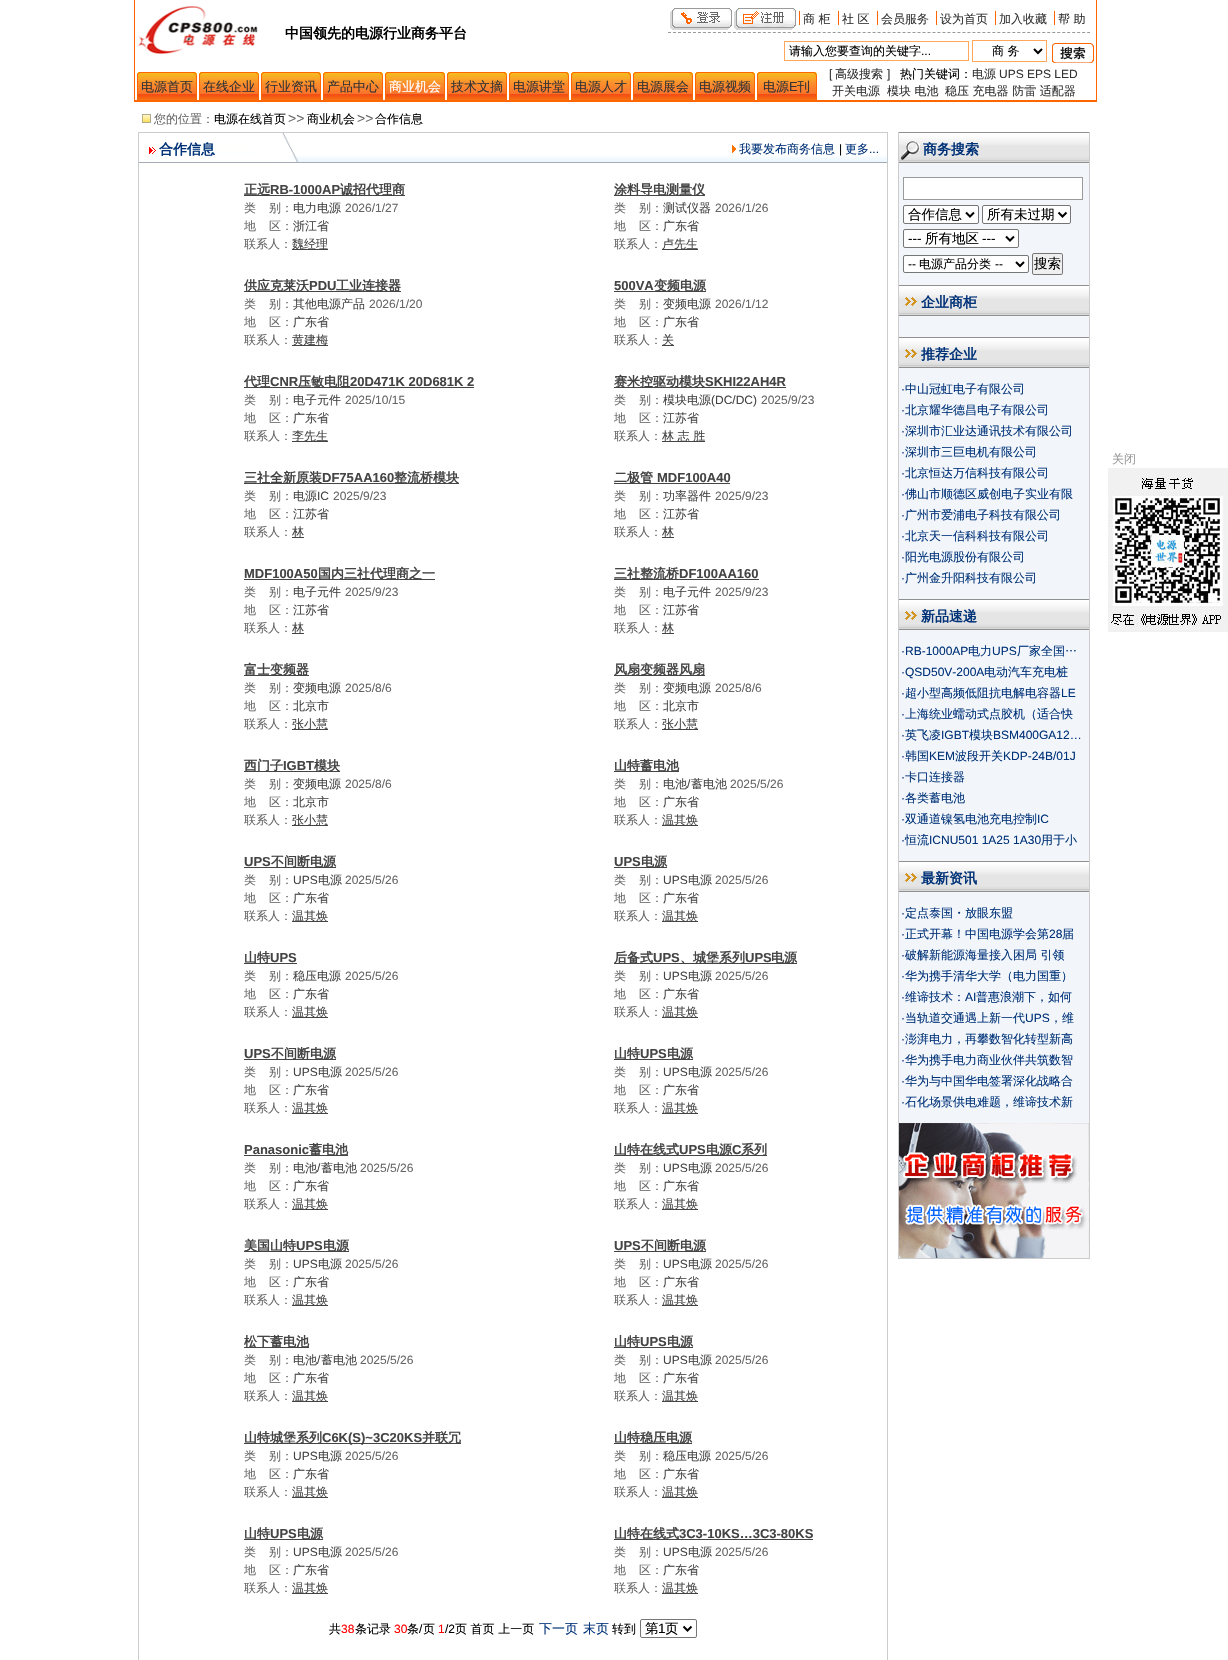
void draw(SkCanvas* canvas) {
    SkPaint paint;
    paint.setAntiAlias(true);
    auto face = [&](const char* family, int weight, float size, bool italic = false) {
        SkFontStyle style(weight, SkFontStyle::kNormal_Width,
            italic ? SkFontStyle::kItalic_Slant : SkFontStyle::kUpright_Slant);
        SkFont result(fontMgr->matchFamilyStyle(family, style), size);
        result.setSubpixel(true);
        return result;
    };
    auto write = [&](const char* s, float x, float y, const SkFont& font, SkColor color) {
        SkPaint ink(SkColor4f::FromColor(color));
        ink.setAntiAlias(true);
        canvas->drawString(s, x, y, font, ink);
    };
    auto block = [&](float x, float y, float w, float h, SkColor color) {
        SkPaint ink(SkColor4f::FromColor(color));
        ink.setAntiAlias(true);
        canvas->drawRect(SkRect::MakeXYWH(x, y, w, h), ink);
    };
    auto paste = [&](const char* path, float x, float y, float w, float h) {
        auto image = SkImages::DeferredFromEncodedData(SkData::MakeFromFileName(path));
        canvas->drawImageRect(image, SkRect::MakeXYWH(x, y, w, h), SkSamplingOptions());
    };
    canvas->clear(SK_ColorWHITE);
    block(1096, 0, 1, 102, SkColorSetRGB(255, 102, 0));
    block(134, 0, 1, 102, SkColorSetRGB(255, 102, 0));
    paste("pic1.png", 137, 5, 121, 49);
    paint.setStyle(SkPaint::kStroke_Style);
    paint.setStrokeWidth(1);
    paint.setColor(SkColorSetRGB(153, 153, 153));
    paint.setPathEffect(SkDashPathEffect::Make({{3, 1.99f}}, 0));
    canvas->drawPath(SkPathBuilder().moveTo(668, 32.5f).lineTo(1090, 32.5f).detach(), paint);
    paint.setPathEffect(nullptr);
    paste("pic2.png", 670, 8, 62, 22);
    paste("pic3.png", 734, 8, 62, 22);
    block(799, 11, 1, 14, SkColorSetRGB(255, 102, 0));
    auto kFont1 = face("WenQuanYi Zen Hei", 500, 12);
    write("商 柜", 803, 23, kFont1, SkColorSetRGB(51, 51, 51));
    block(838, 11, 1, 14, SkColorSetRGB(255, 102, 0));
    write("社 区", 842, 23, kFont1, SkColorSetRGB(51, 51, 51));
    block(877, 11, 1, 14, SkColorSetRGB(255, 102, 0));
    write("会员服务", 881, 23, kFont1, SkColorSetRGB(51, 51, 51));
    block(936, 11, 1, 14, SkColorSetRGB(255, 102, 0));
    write("设为首页", 940, 23, kFont1, SkColorSetRGB(51, 51, 51));
    block(995, 11, 1, 14, SkColorSetRGB(255, 102, 0));
    write("加入收藏", 999, 23, kFont1, SkColorSetRGB(51, 51, 51));
    block(1054, 11, 1, 14, SkColorSetRGB(255, 102, 0));
    write("帮 助", 1058, 23, kFont1, SkColorSetRGB(51, 51, 51));
    auto kFont2 = face("WenQuanYi Zen Hei", 700, 14);
    write("中国领先的电源行业商务平台", 285, 38, kFont2, SK_ColorBLACK);
    block(135, 100, 961, 2, SkColorSetRGB(255, 102, 0));
    paste("pic4.png", 137, 72, 60, 28);
    auto kFont3 = face("WenQuanYi Zen Hei", 500, 13);
    write("电源首页", 141, 91, kFont3, SkColorSetRGB(51, 51, 51));
    paste("pic4.png", 199, 72, 60, 28);
    write("在线企业", 203, 91, kFont3, SkColorSetRGB(51, 51, 51));
    paste("pic4.png", 261, 72, 60, 28);
    write("行业资讯", 265, 91, kFont3, SkColorSetRGB(51, 51, 51));
    paste("pic4.png", 323, 72, 60, 28);
    write("产品中心", 327, 91, kFont3, SkColorSetRGB(51, 51, 51));
    paste("pic4.png", 385, 72, 60, 28);
    write("商业机会", 389, 91, kFont3, SK_ColorWHITE);
    paste("pic4.png", 447, 72, 60, 28);
    write("技术文摘", 451, 91, kFont3, SkColorSetRGB(51, 51, 51));
    paste("pic4.png", 509, 72, 60, 28);
    write("电源讲堂", 513, 91, kFont3, SkColorSetRGB(51, 51, 51));
    paste("pic4.png", 571, 72, 60, 28);
    write("电源人才", 575, 91, kFont3, SkColorSetRGB(51, 51, 51));
    paste("pic4.png", 633, 72, 60, 28);
    write("电源展会", 637, 91, kFont3, SkColorSetRGB(51, 51, 51));
    paste("pic4.png", 695, 72, 60, 28);
    write("电源视频", 699, 91, kFont3, SkColorSetRGB(51, 51, 51));
    paste("pic4.png", 757, 72, 60, 28);
    write("电源", 763, 91, kFont3, SkColorSetRGB(51, 51, 51));
    auto kFont4 = face("Liberation Sans", 400, 13);
    write("E", 789, 91, kFont4, SkColorSetRGB(51, 51, 51));
    write("刊", 797, 91, kFont3, SkColorSetRGB(51, 51, 51));
    paint.setColor(SkColorSetRGB(255, 168, 92));
    canvas->drawRect(SkRect::MakeXYWH(784.5f, 41.5f, 184, 19), paint);
    write("请输入您要查询的关键字", 789, 55, kFont1, SK_ColorBLACK);
    auto kFont5 = face("Liberation Sans", 400, 12);
    write("...", 921, 55, kFont5, SK_ColorBLACK);
    canvas->drawRect(SkRect::MakeXYWH(972.5f, 40.5f, 74, 21), paint);
    paint.setStrokeWidth(2);
    paint.setColor(SK_ColorBLACK);
    canvas->drawPath(SkPathBuilder().moveTo(1034, 49).lineTo(1038, 53).lineTo(1042, 49).detach(), paint);
    write("商 务", 992, 55, kFont1, SK_ColorBLACK);
    paste("pic5.png", 1052, 43, 42, 20);
    write("[", 829, 78, kFont5, SkColorSetRGB(51, 51, 51));
    write("高级搜索", 835, 78, kFont1, SkColorSetRGB(51, 51, 51));
    write("]", 887, 78, kFont5, SkColorSetRGB(51, 51, 51));
    write("热门关键词：", 900, 78, kFont1, SK_ColorBLACK);
    write("电源", 972, 78, kFont1, SkColorSetRGB(51, 51, 51));
    write("UPS EPS LED", 999, 78, kFont5, SkColorSetRGB(51, 51, 51));
    write("开关电源", 832, 95, kFont1, SkColorSetRGB(51, 51, 51));
    write("模块 电池", 887, 95, kFont1, SkColorSetRGB(51, 51, 51));
    write("稳压 充电器 防雷 适配器", 945, 95, kFont1, SkColorSetRGB(51, 51, 51));
    paste("pic6.png", 142, 114, 9, 9);
    write("您的位置：", 154, 123, kFont1, SkColorSetRGB(102, 102, 102));
    write("电源在线首页", 214, 123, kFont1, SK_ColorBLACK);
    auto kFont6 = face("Liberation Sans", 400, 14);
    write(">>", 288, 123, kFont6, SkColorSetRGB(102, 102, 102));
    write("商业机会", 307, 123, kFont1, SK_ColorBLACK);
    write(">>", 357, 123, kFont6, SkColorSetRGB(102, 102, 102));
    write("合作信息", 375, 123, kFont1, SK_ColorBLACK);
    paint.setStrokeWidth(1);
    paint.setColor(SkColorSetRGB(204, 204, 204));
    canvas->drawRect(SkRect::MakeXYWH(138.5f, 132.5f, 749, 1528), paint);
    paste("pic7.png", 139, 133, 748, 30);
    paste("pic8.png", 149, 147, 7, 7);
    write("合作信息", 159, 154, kFont2, SkColorSetRGB(0, 50, 120));
    paste("pic9.png", 732, 145, 4, 8);
    write("我要发布商务信息", 739, 153, kFont1, SkColorSetRGB(0, 50, 120));
    write("|", 839, 153, kFont5, SK_ColorBLACK);
    write("更多", 845, 153, kFont1, SkColorSetRGB(0, 50, 120));
    write("...", 869, 153, kFont5, SkColorSetRGB(0, 50, 120));
    block(244, 195, 161, 1, SkColorSetRGB(68, 68, 68));
    auto kFont7 = face("WenQuanYi Zen Hei", 700, 13);
    write("正远", 244, 194, kFont7, SkColorSetRGB(68, 68, 68));
    auto kFont8 = face("Liberation Sans", 700, 13);
    write("RB-1000AP", 270, 194, kFont8, SkColorSetRGB(68, 68, 68));
    write("诚招代理商", 340, 194, kFont7, SkColorSetRGB(68, 68, 68));
    write("类", 244, 212, kFont1, SkColorSetRGB(102, 102, 102));
    write("别：", 269, 212, kFont1, SkColorSetRGB(102, 102, 102));
    write("电力电源", 293, 212, kFont1, SkColorSetRGB(68, 68, 68));
    write("2026/1/27", 345, 212, kFont5, SkColorSetRGB(102, 102, 102));
    write("地", 244, 230, kFont1, SkColorSetRGB(102, 102, 102));
    write("区：", 269, 230, kFont1, SkColorSetRGB(102, 102, 102));
    write("浙江省", 293, 230, kFont1, SkColorSetRGB(68, 68, 68));
    write("联系人：", 244, 248, kFont1, SkColorSetRGB(102, 102, 102));
    block(292, 249, 36, 1, SkColorSetRGB(68, 68, 68));
    write("魏经理", 292, 248, kFont1, SkColorSetRGB(68, 68, 68));
    block(614, 195, 91, 1, SkColorSetRGB(68, 68, 68));
    write("涂料导电测量仪", 614, 194, kFont7, SkColorSetRGB(68, 68, 68));
    write("类", 614, 212, kFont1, SkColorSetRGB(102, 102, 102));
    write("别：", 639, 212, kFont1, SkColorSetRGB(102, 102, 102));
    write("测试仪器", 663, 212, kFont1, SkColorSetRGB(68, 68, 68));
    write("2026/1/26", 715, 212, kFont5, SkColorSetRGB(102, 102, 102));
    write("地", 614, 230, kFont1, SkColorSetRGB(102, 102, 102));
    write("区：", 639, 230, kFont1, SkColorSetRGB(102, 102, 102));
    write("广东省", 663, 230, kFont1, SkColorSetRGB(68, 68, 68));
    write("联系人：", 614, 248, kFont1, SkColorSetRGB(102, 102, 102));
    block(662, 249, 36, 1, SkColorSetRGB(68, 68, 68));
    write("卢先生", 662, 248, kFont1, SkColorSetRGB(68, 68, 68));
    block(244, 291, 157, 1, SkColorSetRGB(68, 68, 68));
    write("供应克莱沃", 244, 290, kFont7, SkColorSetRGB(68, 68, 68));
    write("PDU", 309, 290, kFont8, SkColorSetRGB(68, 68, 68));
    write("工业连接器", 336, 290, kFont7, SkColorSetRGB(68, 68, 68));
    write("类", 244, 308, kFont1, SkColorSetRGB(102, 102, 102));
    write("别：", 269, 308, kFont1, SkColorSetRGB(102, 102, 102));
    write("其他电源产品", 293, 308, kFont1, SkColorSetRGB(68, 68, 68));
    write("2026/1/20", 369, 308, kFont5, SkColorSetRGB(102, 102, 102));
    write("地", 244, 326, kFont1, SkColorSetRGB(102, 102, 102));
    write("区：", 269, 326, kFont1, SkColorSetRGB(102, 102, 102));
    write("广东省", 293, 326, kFont1, SkColorSetRGB(68, 68, 68));
    write("联系人：", 244, 344, kFont1, SkColorSetRGB(102, 102, 102));
    block(292, 345, 36, 1, SkColorSetRGB(68, 68, 68));
    write("黄建梅", 292, 344, kFont1, SkColorSetRGB(68, 68, 68));
    write("500VA", 614, 290, kFont8, SkColorSetRGB(68, 68, 68));
    block(614, 291, 92, 1, SkColorSetRGB(68, 68, 68));
    write("变频电源", 654, 290, kFont7, SkColorSetRGB(68, 68, 68));
    write("类", 614, 308, kFont1, SkColorSetRGB(102, 102, 102));
    write("别：", 639, 308, kFont1, SkColorSetRGB(102, 102, 102));
    write("变频电源", 663, 308, kFont1, SkColorSetRGB(68, 68, 68));
    write("2026/1/12", 715, 308, kFont5, SkColorSetRGB(102, 102, 102));
    write("地", 614, 326, kFont1, SkColorSetRGB(102, 102, 102));
    write("区：", 639, 326, kFont1, SkColorSetRGB(102, 102, 102));
    write("广东省", 663, 326, kFont1, SkColorSetRGB(68, 68, 68));
    write("联系人：", 614, 344, kFont1, SkColorSetRGB(102, 102, 102));
    block(662, 345, 12, 1, SkColorSetRGB(68, 68, 68));
    write("关", 662, 344, kFont1, SkColorSetRGB(68, 68, 68));
    block(244, 387, 230, 1, SkColorSetRGB(68, 68, 68));
    write("代理", 244, 386, kFont7, SkColorSetRGB(68, 68, 68));
    write("CNR", 270, 386, kFont8, SkColorSetRGB(68, 68, 68));
    write("压敏电阻", 298, 386, kFont7, SkColorSetRGB(68, 68, 68));
    write("20D471K 20D681K 2", 350, 386, kFont8, SkColorSetRGB(68, 68, 68));
    write("类", 244, 404, kFont1, SkColorSetRGB(102, 102, 102));
    write("别：", 269, 404, kFont1, SkColorSetRGB(102, 102, 102));
    write("电子元件", 293, 404, kFont1, SkColorSetRGB(68, 68, 68));
    write("2025/10/15", 345, 404, kFont5, SkColorSetRGB(102, 102, 102));
    write("地", 244, 422, kFont1, SkColorSetRGB(102, 102, 102));
    write("区：", 269, 422, kFont1, SkColorSetRGB(102, 102, 102));
    write("广东省", 293, 422, kFont1, SkColorSetRGB(68, 68, 68));
    write("联系人：", 244, 440, kFont1, SkColorSetRGB(102, 102, 102));
    block(292, 441, 36, 1, SkColorSetRGB(68, 68, 68));
    write("李先生", 292, 440, kFont1, SkColorSetRGB(68, 68, 68));
    block(614, 387, 172, 1, SkColorSetRGB(68, 68, 68));
    write("赛米控驱动模块", 614, 386, kFont7, SkColorSetRGB(68, 68, 68));
    write("SKHI22AH4R", 705, 386, kFont8, SkColorSetRGB(68, 68, 68));
    write("类", 614, 404, kFont1, SkColorSetRGB(102, 102, 102));
    write("别：", 639, 404, kFont1, SkColorSetRGB(102, 102, 102));
    write("模块电源", 663, 404, kFont1, SkColorSetRGB(68, 68, 68));
    write("(DC/DC)", 711, 404, kFont5, SkColorSetRGB(68, 68, 68));
    write("2025/9/23", 761, 404, kFont5, SkColorSetRGB(102, 102, 102));
    write("地", 614, 422, kFont1, SkColorSetRGB(102, 102, 102));
    write("区：", 639, 422, kFont1, SkColorSetRGB(102, 102, 102));
    write("江苏省", 663, 422, kFont1, SkColorSetRGB(68, 68, 68));
    write("联系人：", 614, 440, kFont1, SkColorSetRGB(102, 102, 102));
    block(662, 441, 43, 1, SkColorSetRGB(68, 68, 68));
    write("林 志 胜", 662, 440, kFont1, SkColorSetRGB(68, 68, 68));
    block(244, 483, 215, 1, SkColorSetRGB(68, 68, 68));
    write("三社全新原装", 244, 482, kFont7, SkColorSetRGB(68, 68, 68));
    write("DF75AA160", 322, 482, kFont8, SkColorSetRGB(68, 68, 68));
    write("整流桥模块", 394, 482, kFont7, SkColorSetRGB(68, 68, 68));
    write("类", 244, 500, kFont1, SkColorSetRGB(102, 102, 102));
    write("别：", 269, 500, kFont1, SkColorSetRGB(102, 102, 102));
    write("电源", 293, 500, kFont1, SkColorSetRGB(68, 68, 68));
    write("IC", 317, 500, kFont5, SkColorSetRGB(68, 68, 68));
    write("2025/9/23", 333, 500, kFont5, SkColorSetRGB(102, 102, 102));
    write("地", 244, 518, kFont1, SkColorSetRGB(102, 102, 102));
    write("区：", 269, 518, kFont1, SkColorSetRGB(102, 102, 102));
    write("江苏省", 293, 518, kFont1, SkColorSetRGB(68, 68, 68));
    write("联系人：", 244, 536, kFont1, SkColorSetRGB(102, 102, 102));
    block(292, 537, 12, 1, SkColorSetRGB(68, 68, 68));
    write("林", 292, 536, kFont1, SkColorSetRGB(68, 68, 68));
    block(614, 483, 116, 1, SkColorSetRGB(68, 68, 68));
    write("二极管", 614, 482, kFont7, SkColorSetRGB(68, 68, 68));
    write("MDF100A40", 657, 482, kFont8, SkColorSetRGB(68, 68, 68));
    write("类", 614, 500, kFont1, SkColorSetRGB(102, 102, 102));
    write("别：", 639, 500, kFont1, SkColorSetRGB(102, 102, 102));
    write("功率器件", 663, 500, kFont1, SkColorSetRGB(68, 68, 68));
    write("2025/9/23", 715, 500, kFont5, SkColorSetRGB(102, 102, 102));
    write("地", 614, 518, kFont1, SkColorSetRGB(102, 102, 102));
    write("区：", 639, 518, kFont1, SkColorSetRGB(102, 102, 102));
    write("江苏省", 663, 518, kFont1, SkColorSetRGB(68, 68, 68));
    write("联系人：", 614, 536, kFont1, SkColorSetRGB(102, 102, 102));
    block(662, 537, 12, 1, SkColorSetRGB(68, 68, 68));
    write("林", 662, 536, kFont1, SkColorSetRGB(68, 68, 68));
    write("MDF100A50", 244, 578, kFont8, SkColorSetRGB(68, 68, 68));
    block(244, 579, 191, 1, SkColorSetRGB(68, 68, 68));
    write("国内三社代理商之一", 318, 578, kFont7, SkColorSetRGB(68, 68, 68));
    write("类", 244, 596, kFont1, SkColorSetRGB(102, 102, 102));
    write("别：", 269, 596, kFont1, SkColorSetRGB(102, 102, 102));
    write("电子元件", 293, 596, kFont1, SkColorSetRGB(68, 68, 68));
    write("2025/9/23", 345, 596, kFont5, SkColorSetRGB(102, 102, 102));
    write("地", 244, 614, kFont1, SkColorSetRGB(102, 102, 102));
    write("区：", 269, 614, kFont1, SkColorSetRGB(102, 102, 102));
    write("江苏省", 293, 614, kFont1, SkColorSetRGB(68, 68, 68));
    write("联系人：", 244, 632, kFont1, SkColorSetRGB(102, 102, 102));
    block(292, 633, 12, 1, SkColorSetRGB(68, 68, 68));
    write("林", 292, 632, kFont1, SkColorSetRGB(68, 68, 68));
    block(614, 579, 145, 1, SkColorSetRGB(68, 68, 68));
    write("三社整流桥", 614, 578, kFont7, SkColorSetRGB(68, 68, 68));
    write("DF100AA160", 679, 578, kFont8, SkColorSetRGB(68, 68, 68));
    write("类", 614, 596, kFont1, SkColorSetRGB(102, 102, 102));
    write("别：", 639, 596, kFont1, SkColorSetRGB(102, 102, 102));
    write("电子元件", 663, 596, kFont1, SkColorSetRGB(68, 68, 68));
    write("2025/9/23", 715, 596, kFont5, SkColorSetRGB(102, 102, 102));
    write("地", 614, 614, kFont1, SkColorSetRGB(102, 102, 102));
    write("区：", 639, 614, kFont1, SkColorSetRGB(102, 102, 102));
    write("江苏省", 663, 614, kFont1, SkColorSetRGB(68, 68, 68));
    write("联系人：", 614, 632, kFont1, SkColorSetRGB(102, 102, 102));
    block(662, 633, 12, 1, SkColorSetRGB(68, 68, 68));
    write("林", 662, 632, kFont1, SkColorSetRGB(68, 68, 68));
    block(244, 675, 65, 1, SkColorSetRGB(68, 68, 68));
    write("富士变频器", 244, 674, kFont7, SkColorSetRGB(68, 68, 68));
    write("类", 244, 692, kFont1, SkColorSetRGB(102, 102, 102));
    write("别：", 269, 692, kFont1, SkColorSetRGB(102, 102, 102));
    write("变频电源", 293, 692, kFont1, SkColorSetRGB(68, 68, 68));
    write("2025/8/6", 345, 692, kFont5, SkColorSetRGB(102, 102, 102));
    write("地", 244, 710, kFont1, SkColorSetRGB(102, 102, 102));
    write("区：", 269, 710, kFont1, SkColorSetRGB(102, 102, 102));
    write("北京市", 293, 710, kFont1, SkColorSetRGB(68, 68, 68));
    write("联系人：", 244, 728, kFont1, SkColorSetRGB(102, 102, 102));
    block(292, 729, 36, 1, SkColorSetRGB(68, 68, 68));
    write("张小慧", 292, 728, kFont1, SkColorSetRGB(68, 68, 68));
    block(614, 675, 91, 1, SkColorSetRGB(68, 68, 68));
    write("风扇变频器风扇", 614, 674, kFont7, SkColorSetRGB(68, 68, 68));
    write("类", 614, 692, kFont1, SkColorSetRGB(102, 102, 102));
    write("别：", 639, 692, kFont1, SkColorSetRGB(102, 102, 102));
    write("变频电源", 663, 692, kFont1, SkColorSetRGB(68, 68, 68));
    write("2025/8/6", 715, 692, kFont5, SkColorSetRGB(102, 102, 102));
    write("地", 614, 710, kFont1, SkColorSetRGB(102, 102, 102));
    write("区：", 639, 710, kFont1, SkColorSetRGB(102, 102, 102));
    write("北京市", 663, 710, kFont1, SkColorSetRGB(68, 68, 68));
    write("联系人：", 614, 728, kFont1, SkColorSetRGB(102, 102, 102));
    block(662, 729, 36, 1, SkColorSetRGB(68, 68, 68));
    write("张小慧", 662, 728, kFont1, SkColorSetRGB(68, 68, 68));
    block(244, 771, 96, 1, SkColorSetRGB(68, 68, 68));
    write("西门子", 244, 770, kFont7, SkColorSetRGB(68, 68, 68));
    write("IGBT", 283, 770, kFont8, SkColorSetRGB(68, 68, 68));
    write("模块", 314, 770, kFont7, SkColorSetRGB(68, 68, 68));
    write("类", 244, 788, kFont1, SkColorSetRGB(102, 102, 102));
    write("别：", 269, 788, kFont1, SkColorSetRGB(102, 102, 102));
    write("变频电源", 293, 788, kFont1, SkColorSetRGB(68, 68, 68));
    write("2025/8/6", 345, 788, kFont5, SkColorSetRGB(102, 102, 102));
    write("地", 244, 806, kFont1, SkColorSetRGB(102, 102, 102));
    write("区：", 269, 806, kFont1, SkColorSetRGB(102, 102, 102));
    write("北京市", 293, 806, kFont1, SkColorSetRGB(68, 68, 68));
    write("联系人：", 244, 824, kFont1, SkColorSetRGB(102, 102, 102));
    block(292, 825, 36, 1, SkColorSetRGB(68, 68, 68));
    write("张小慧", 292, 824, kFont1, SkColorSetRGB(68, 68, 68));
    block(614, 771, 65, 1, SkColorSetRGB(68, 68, 68));
    write("山特蓄电池", 614, 770, kFont7, SkColorSetRGB(68, 68, 68));
    write("类", 614, 788, kFont1, SkColorSetRGB(102, 102, 102));
    write("别：", 639, 788, kFont1, SkColorSetRGB(102, 102, 102));
    write("电池", 663, 788, kFont1, SkColorSetRGB(68, 68, 68));
    write("/", 687, 788, kFont5, SkColorSetRGB(68, 68, 68));
    write("蓄电池", 691, 788, kFont1, SkColorSetRGB(68, 68, 68));
    write("2025/5/26", 730, 788, kFont5, SkColorSetRGB(102, 102, 102));
    write("地", 614, 806, kFont1, SkColorSetRGB(102, 102, 102));
    write("区：", 639, 806, kFont1, SkColorSetRGB(102, 102, 102));
    write("广东省", 663, 806, kFont1, SkColorSetRGB(68, 68, 68));
    write("联系人：", 614, 824, kFont1, SkColorSetRGB(102, 102, 102));
    block(662, 825, 36, 1, SkColorSetRGB(68, 68, 68));
    write("温其焕", 662, 824, kFont1, SkColorSetRGB(68, 68, 68));
    write("UPS", 244, 866, kFont8, SkColorSetRGB(68, 68, 68));
    block(244, 867, 92, 1, SkColorSetRGB(68, 68, 68));
    write("不间断电源", 271, 866, kFont7, SkColorSetRGB(68, 68, 68));
    write("类", 244, 884, kFont1, SkColorSetRGB(102, 102, 102));
    write("别：", 269, 884, kFont1, SkColorSetRGB(102, 102, 102));
    write("UPS", 293, 884, kFont5, SkColorSetRGB(68, 68, 68));
    write("电源", 318, 884, kFont1, SkColorSetRGB(68, 68, 68));
    write("2025/5/26", 345, 884, kFont5, SkColorSetRGB(102, 102, 102));
    write("地", 244, 902, kFont1, SkColorSetRGB(102, 102, 102));
    write("区：", 269, 902, kFont1, SkColorSetRGB(102, 102, 102));
    write("广东省", 293, 902, kFont1, SkColorSetRGB(68, 68, 68));
    write("联系人：", 244, 920, kFont1, SkColorSetRGB(102, 102, 102));
    block(292, 921, 36, 1, SkColorSetRGB(68, 68, 68));
    write("温其焕", 292, 920, kFont1, SkColorSetRGB(68, 68, 68));
    write("UPS", 614, 866, kFont8, SkColorSetRGB(68, 68, 68));
    block(614, 867, 53, 1, SkColorSetRGB(68, 68, 68));
    write("电源", 641, 866, kFont7, SkColorSetRGB(68, 68, 68));
    write("类", 614, 884, kFont1, SkColorSetRGB(102, 102, 102));
    write("别：", 639, 884, kFont1, SkColorSetRGB(102, 102, 102));
    write("UPS", 663, 884, kFont5, SkColorSetRGB(68, 68, 68));
    write("电源", 688, 884, kFont1, SkColorSetRGB(68, 68, 68));
    write("2025/5/26", 715, 884, kFont5, SkColorSetRGB(102, 102, 102));
    write("地", 614, 902, kFont1, SkColorSetRGB(102, 102, 102));
    write("区：", 639, 902, kFont1, SkColorSetRGB(102, 102, 102));
    write("广东省", 663, 902, kFont1, SkColorSetRGB(68, 68, 68));
    write("联系人：", 614, 920, kFont1, SkColorSetRGB(102, 102, 102));
    block(662, 921, 36, 1, SkColorSetRGB(68, 68, 68));
    write("温其焕", 662, 920, kFont1, SkColorSetRGB(68, 68, 68));
    block(244, 963, 53, 1, SkColorSetRGB(68, 68, 68));
    write("山特", 244, 962, kFont7, SkColorSetRGB(68, 68, 68));
    write("UPS", 270, 962, kFont8, SkColorSetRGB(68, 68, 68));
    write("类", 244, 980, kFont1, SkColorSetRGB(102, 102, 102));
    write("别：", 269, 980, kFont1, SkColorSetRGB(102, 102, 102));
    write("稳压电源", 293, 980, kFont1, SkColorSetRGB(68, 68, 68));
    write("2025/5/26", 345, 980, kFont5, SkColorSetRGB(102, 102, 102));
    write("地", 244, 998, kFont1, SkColorSetRGB(102, 102, 102));
    write("区：", 269, 998, kFont1, SkColorSetRGB(102, 102, 102));
    write("广东省", 293, 998, kFont1, SkColorSetRGB(68, 68, 68));
    write("联系人：", 244, 1016, kFont1, SkColorSetRGB(102, 102, 102));
    block(292, 1017, 36, 1, SkColorSetRGB(68, 68, 68));
    write("温其焕", 292, 1016, kFont1, SkColorSetRGB(68, 68, 68));
    block(614, 963, 183, 1, SkColorSetRGB(68, 68, 68));
    write("后备式", 614, 962, kFont7, SkColorSetRGB(68, 68, 68));
    write("UPS", 653, 962, kFont8, SkColorSetRGB(68, 68, 68));
    write("、城堡系列", 680, 962, kFont7, SkColorSetRGB(68, 68, 68));
    write("UPS", 745, 962, kFont8, SkColorSetRGB(68, 68, 68));
    write("电源", 771, 962, kFont7, SkColorSetRGB(68, 68, 68));
    write("类", 614, 980, kFont1, SkColorSetRGB(102, 102, 102));
    write("别：", 639, 980, kFont1, SkColorSetRGB(102, 102, 102));
    write("UPS", 663, 980, kFont5, SkColorSetRGB(68, 68, 68));
    write("电源", 688, 980, kFont1, SkColorSetRGB(68, 68, 68));
    write("2025/5/26", 715, 980, kFont5, SkColorSetRGB(102, 102, 102));
    write("地", 614, 998, kFont1, SkColorSetRGB(102, 102, 102));
    write("区：", 639, 998, kFont1, SkColorSetRGB(102, 102, 102));
    write("广东省", 663, 998, kFont1, SkColorSetRGB(68, 68, 68));
    write("联系人：", 614, 1016, kFont1, SkColorSetRGB(102, 102, 102));
    block(662, 1017, 36, 1, SkColorSetRGB(68, 68, 68));
    write("温其焕", 662, 1016, kFont1, SkColorSetRGB(68, 68, 68));
    write("UPS", 244, 1058, kFont8, SkColorSetRGB(68, 68, 68));
    block(244, 1059, 92, 1, SkColorSetRGB(68, 68, 68));
    write("不间断电源", 271, 1058, kFont7, SkColorSetRGB(68, 68, 68));
    write("类", 244, 1076, kFont1, SkColorSetRGB(102, 102, 102));
    write("别：", 269, 1076, kFont1, SkColorSetRGB(102, 102, 102));
    write("UPS", 293, 1076, kFont5, SkColorSetRGB(68, 68, 68));
    write("电源", 318, 1076, kFont1, SkColorSetRGB(68, 68, 68));
    write("2025/5/26", 345, 1076, kFont5, SkColorSetRGB(102, 102, 102));
    write("地", 244, 1094, kFont1, SkColorSetRGB(102, 102, 102));
    write("区：", 269, 1094, kFont1, SkColorSetRGB(102, 102, 102));
    write("广东省", 293, 1094, kFont1, SkColorSetRGB(68, 68, 68));
    write("联系人：", 244, 1112, kFont1, SkColorSetRGB(102, 102, 102));
    block(292, 1113, 36, 1, SkColorSetRGB(68, 68, 68));
    write("温其焕", 292, 1112, kFont1, SkColorSetRGB(68, 68, 68));
    block(614, 1059, 79, 1, SkColorSetRGB(68, 68, 68));
    write("山特", 614, 1058, kFont7, SkColorSetRGB(68, 68, 68));
    write("UPS", 640, 1058, kFont8, SkColorSetRGB(68, 68, 68));
    write("电源", 667, 1058, kFont7, SkColorSetRGB(68, 68, 68));
    write("类", 614, 1076, kFont1, SkColorSetRGB(102, 102, 102));
    write("别：", 639, 1076, kFont1, SkColorSetRGB(102, 102, 102));
    write("UPS", 663, 1076, kFont5, SkColorSetRGB(68, 68, 68));
    write("电源", 688, 1076, kFont1, SkColorSetRGB(68, 68, 68));
    write("2025/5/26", 715, 1076, kFont5, SkColorSetRGB(102, 102, 102));
    write("地", 614, 1094, kFont1, SkColorSetRGB(102, 102, 102));
    write("区：", 639, 1094, kFont1, SkColorSetRGB(102, 102, 102));
    write("广东省", 663, 1094, kFont1, SkColorSetRGB(68, 68, 68));
    write("联系人：", 614, 1112, kFont1, SkColorSetRGB(102, 102, 102));
    block(662, 1113, 36, 1, SkColorSetRGB(68, 68, 68));
    write("温其焕", 662, 1112, kFont1, SkColorSetRGB(68, 68, 68));
    write("Panasonic", 244, 1154, kFont8, SkColorSetRGB(68, 68, 68));
    block(244, 1155, 104, 1, SkColorSetRGB(68, 68, 68));
    write("蓄电池", 309, 1154, kFont7, SkColorSetRGB(68, 68, 68));
    write("类", 244, 1172, kFont1, SkColorSetRGB(102, 102, 102));
    write("别：", 269, 1172, kFont1, SkColorSetRGB(102, 102, 102));
    write("电池", 293, 1172, kFont1, SkColorSetRGB(68, 68, 68));
    write("/", 317, 1172, kFont5, SkColorSetRGB(68, 68, 68));
    write("蓄电池", 321, 1172, kFont1, SkColorSetRGB(68, 68, 68));
    write("2025/5/26", 360, 1172, kFont5, SkColorSetRGB(102, 102, 102));
    write("地", 244, 1190, kFont1, SkColorSetRGB(102, 102, 102));
    write("区：", 269, 1190, kFont1, SkColorSetRGB(102, 102, 102));
    write("广东省", 293, 1190, kFont1, SkColorSetRGB(68, 68, 68));
    write("联系人：", 244, 1208, kFont1, SkColorSetRGB(102, 102, 102));
    block(292, 1209, 36, 1, SkColorSetRGB(68, 68, 68));
    write("温其焕", 292, 1208, kFont1, SkColorSetRGB(68, 68, 68));
    block(614, 1155, 153, 1, SkColorSetRGB(68, 68, 68));
    write("山特在线式", 614, 1154, kFont7, SkColorSetRGB(68, 68, 68));
    write("UPS", 679, 1154, kFont8, SkColorSetRGB(68, 68, 68));
    write("电源", 706, 1154, kFont7, SkColorSetRGB(68, 68, 68));
    write("C", 732, 1154, kFont8, SkColorSetRGB(68, 68, 68));
    write("系列", 741, 1154, kFont7, SkColorSetRGB(68, 68, 68));
    write("类", 614, 1172, kFont1, SkColorSetRGB(102, 102, 102));
    write("别：", 639, 1172, kFont1, SkColorSetRGB(102, 102, 102));
    write("UPS", 663, 1172, kFont5, SkColorSetRGB(68, 68, 68));
    write("电源", 688, 1172, kFont1, SkColorSetRGB(68, 68, 68));
    write("2025/5/26", 715, 1172, kFont5, SkColorSetRGB(102, 102, 102));
    write("地", 614, 1190, kFont1, SkColorSetRGB(102, 102, 102));
    write("区：", 639, 1190, kFont1, SkColorSetRGB(102, 102, 102));
    write("广东省", 663, 1190, kFont1, SkColorSetRGB(68, 68, 68));
    write("联系人：", 614, 1208, kFont1, SkColorSetRGB(102, 102, 102));
    block(662, 1209, 36, 1, SkColorSetRGB(68, 68, 68));
    write("温其焕", 662, 1208, kFont1, SkColorSetRGB(68, 68, 68));
    block(244, 1251, 105, 1, SkColorSetRGB(68, 68, 68));
    write("美国山特", 244, 1250, kFont7, SkColorSetRGB(68, 68, 68));
    write("UPS", 296, 1250, kFont8, SkColorSetRGB(68, 68, 68));
    write("电源", 323, 1250, kFont7, SkColorSetRGB(68, 68, 68));
    write("类", 244, 1268, kFont1, SkColorSetRGB(102, 102, 102));
    write("别：", 269, 1268, kFont1, SkColorSetRGB(102, 102, 102));
    write("UPS", 293, 1268, kFont5, SkColorSetRGB(68, 68, 68));
    write("电源", 318, 1268, kFont1, SkColorSetRGB(68, 68, 68));
    write("2025/5/26", 345, 1268, kFont5, SkColorSetRGB(102, 102, 102));
    write("地", 244, 1286, kFont1, SkColorSetRGB(102, 102, 102));
    write("区：", 269, 1286, kFont1, SkColorSetRGB(102, 102, 102));
    write("广东省", 293, 1286, kFont1, SkColorSetRGB(68, 68, 68));
    write("联系人：", 244, 1304, kFont1, SkColorSetRGB(102, 102, 102));
    block(292, 1305, 36, 1, SkColorSetRGB(68, 68, 68));
    write("温其焕", 292, 1304, kFont1, SkColorSetRGB(68, 68, 68));
    write("UPS", 614, 1250, kFont8, SkColorSetRGB(68, 68, 68));
    block(614, 1251, 92, 1, SkColorSetRGB(68, 68, 68));
    write("不间断电源", 641, 1250, kFont7, SkColorSetRGB(68, 68, 68));
    write("类", 614, 1268, kFont1, SkColorSetRGB(102, 102, 102));
    write("别：", 639, 1268, kFont1, SkColorSetRGB(102, 102, 102));
    write("UPS", 663, 1268, kFont5, SkColorSetRGB(68, 68, 68));
    write("电源", 688, 1268, kFont1, SkColorSetRGB(68, 68, 68));
    write("2025/5/26", 715, 1268, kFont5, SkColorSetRGB(102, 102, 102));
    write("地", 614, 1286, kFont1, SkColorSetRGB(102, 102, 102));
    write("区：", 639, 1286, kFont1, SkColorSetRGB(102, 102, 102));
    write("广东省", 663, 1286, kFont1, SkColorSetRGB(68, 68, 68));
    write("联系人：", 614, 1304, kFont1, SkColorSetRGB(102, 102, 102));
    block(662, 1305, 36, 1, SkColorSetRGB(68, 68, 68));
    write("温其焕", 662, 1304, kFont1, SkColorSetRGB(68, 68, 68));
    block(244, 1347, 65, 1, SkColorSetRGB(68, 68, 68));
    write("松下蓄电池", 244, 1346, kFont7, SkColorSetRGB(68, 68, 68));
    write("类", 244, 1364, kFont1, SkColorSetRGB(102, 102, 102));
    write("别：", 269, 1364, kFont1, SkColorSetRGB(102, 102, 102));
    write("电池", 293, 1364, kFont1, SkColorSetRGB(68, 68, 68));
    write("/", 317, 1364, kFont5, SkColorSetRGB(68, 68, 68));
    write("蓄电池", 321, 1364, kFont1, SkColorSetRGB(68, 68, 68));
    write("2025/5/26", 360, 1364, kFont5, SkColorSetRGB(102, 102, 102));
    write("地", 244, 1382, kFont1, SkColorSetRGB(102, 102, 102));
    write("区：", 269, 1382, kFont1, SkColorSetRGB(102, 102, 102));
    write("广东省", 293, 1382, kFont1, SkColorSetRGB(68, 68, 68));
    write("联系人：", 244, 1400, kFont1, SkColorSetRGB(102, 102, 102));
    block(292, 1401, 36, 1, SkColorSetRGB(68, 68, 68));
    write("温其焕", 292, 1400, kFont1, SkColorSetRGB(68, 68, 68));
    block(614, 1347, 79, 1, SkColorSetRGB(68, 68, 68));
    write("山特", 614, 1346, kFont7, SkColorSetRGB(68, 68, 68));
    write("UPS", 640, 1346, kFont8, SkColorSetRGB(68, 68, 68));
    write("电源", 667, 1346, kFont7, SkColorSetRGB(68, 68, 68));
    write("类", 614, 1364, kFont1, SkColorSetRGB(102, 102, 102));
    write("别：", 639, 1364, kFont1, SkColorSetRGB(102, 102, 102));
    write("UPS", 663, 1364, kFont5, SkColorSetRGB(68, 68, 68));
    write("电源", 688, 1364, kFont1, SkColorSetRGB(68, 68, 68));
    write("2025/5/26", 715, 1364, kFont5, SkColorSetRGB(102, 102, 102));
    write("地", 614, 1382, kFont1, SkColorSetRGB(102, 102, 102));
    write("区：", 639, 1382, kFont1, SkColorSetRGB(102, 102, 102));
    write("广东省", 663, 1382, kFont1, SkColorSetRGB(68, 68, 68));
    write("联系人：", 614, 1400, kFont1, SkColorSetRGB(102, 102, 102));
    block(662, 1401, 36, 1, SkColorSetRGB(68, 68, 68));
    write("温其焕", 662, 1400, kFont1, SkColorSetRGB(68, 68, 68));
    block(244, 1443, 217, 1, SkColorSetRGB(68, 68, 68));
    write("山特城堡系列", 244, 1442, kFont7, SkColorSetRGB(68, 68, 68));
    write("C6K(S)~3C20KS", 322, 1442, kFont8, SkColorSetRGB(68, 68, 68));
    write("并联冗", 422, 1442, kFont7, SkColorSetRGB(68, 68, 68));
    write("类", 244, 1460, kFont1, SkColorSetRGB(102, 102, 102));
    write("别：", 269, 1460, kFont1, SkColorSetRGB(102, 102, 102));
    write("UPS", 293, 1460, kFont5, SkColorSetRGB(68, 68, 68));
    write("电源", 318, 1460, kFont1, SkColorSetRGB(68, 68, 68));
    write("2025/5/26", 345, 1460, kFont5, SkColorSetRGB(102, 102, 102));
    write("地", 244, 1478, kFont1, SkColorSetRGB(102, 102, 102));
    write("区：", 269, 1478, kFont1, SkColorSetRGB(102, 102, 102));
    write("广东省", 293, 1478, kFont1, SkColorSetRGB(68, 68, 68));
    write("联系人：", 244, 1496, kFont1, SkColorSetRGB(102, 102, 102));
    block(292, 1497, 36, 1, SkColorSetRGB(68, 68, 68));
    write("温其焕", 292, 1496, kFont1, SkColorSetRGB(68, 68, 68));
    block(614, 1443, 78, 1, SkColorSetRGB(68, 68, 68));
    write("山特稳压电源", 614, 1442, kFont7, SkColorSetRGB(68, 68, 68));
    write("类", 614, 1460, kFont1, SkColorSetRGB(102, 102, 102));
    write("别：", 639, 1460, kFont1, SkColorSetRGB(102, 102, 102));
    write("稳压电源", 663, 1460, kFont1, SkColorSetRGB(68, 68, 68));
    write("2025/5/26", 715, 1460, kFont5, SkColorSetRGB(102, 102, 102));
    write("地", 614, 1478, kFont1, SkColorSetRGB(102, 102, 102));
    write("区：", 639, 1478, kFont1, SkColorSetRGB(102, 102, 102));
    write("广东省", 663, 1478, kFont1, SkColorSetRGB(68, 68, 68));
    write("联系人：", 614, 1496, kFont1, SkColorSetRGB(102, 102, 102));
    block(662, 1497, 36, 1, SkColorSetRGB(68, 68, 68));
    write("温其焕", 662, 1496, kFont1, SkColorSetRGB(68, 68, 68));
    block(244, 1539, 79, 1, SkColorSetRGB(68, 68, 68));
    write("山特", 244, 1538, kFont7, SkColorSetRGB(68, 68, 68));
    write("UPS", 270, 1538, kFont8, SkColorSetRGB(68, 68, 68));
    write("电源", 297, 1538, kFont7, SkColorSetRGB(68, 68, 68));
    write("类", 244, 1556, kFont1, SkColorSetRGB(102, 102, 102));
    write("别：", 269, 1556, kFont1, SkColorSetRGB(102, 102, 102));
    write("UPS", 293, 1556, kFont5, SkColorSetRGB(68, 68, 68));
    write("电源", 318, 1556, kFont1, SkColorSetRGB(68, 68, 68));
    write("2025/5/26", 345, 1556, kFont5, SkColorSetRGB(102, 102, 102));
    write("地", 244, 1574, kFont1, SkColorSetRGB(102, 102, 102));
    write("区：", 269, 1574, kFont1, SkColorSetRGB(102, 102, 102));
    write("广东省", 293, 1574, kFont1, SkColorSetRGB(68, 68, 68));
    write("联系人：", 244, 1592, kFont1, SkColorSetRGB(102, 102, 102));
    block(292, 1593, 36, 1, SkColorSetRGB(68, 68, 68));
    write("温其焕", 292, 1592, kFont1, SkColorSetRGB(68, 68, 68));
    block(614, 1539, 199, 1, SkColorSetRGB(68, 68, 68));
    write("山特在线式", 614, 1538, kFont7, SkColorSetRGB(68, 68, 68));
    write("3C3-10KS…3C3-80KS", 679, 1538, kFont8, SkColorSetRGB(68, 68, 68));
    write("类", 614, 1556, kFont1, SkColorSetRGB(102, 102, 102));
    write("别：", 639, 1556, kFont1, SkColorSetRGB(102, 102, 102));
    write("UPS", 663, 1556, kFont5, SkColorSetRGB(68, 68, 68));
    write("电源", 688, 1556, kFont1, SkColorSetRGB(68, 68, 68));
    write("2025/5/26", 715, 1556, kFont5, SkColorSetRGB(102, 102, 102));
    write("地", 614, 1574, kFont1, SkColorSetRGB(102, 102, 102));
    write("区：", 639, 1574, kFont1, SkColorSetRGB(102, 102, 102));
    write("广东省", 663, 1574, kFont1, SkColorSetRGB(68, 68, 68));
    write("联系人：", 614, 1592, kFont1, SkColorSetRGB(102, 102, 102));
    block(662, 1593, 36, 1, SkColorSetRGB(68, 68, 68));
    write("温其焕", 662, 1592, kFont1, SkColorSetRGB(68, 68, 68));
    write("共", 329, 1633, kFont1, SK_ColorBLACK);
    write("38", 341, 1633, kFont5, SkColorSetRGB(255, 0, 0));
    write("条记录", 355, 1633, kFont1, SK_ColorBLACK);
    write("30", 394, 1633, kFont5, SkColorSetRGB(255, 0, 0));
    write("条", 407, 1633, kFont1, SK_ColorBLACK);
    write("/", 419, 1633, kFont5, SK_ColorBLACK);
    write("页", 423, 1633, kFont1, SK_ColorBLACK);
    write("1", 438, 1633, kFont5, SkColorSetRGB(255, 0, 0));
    write("/2", 445, 1633, kFont5, SK_ColorBLACK);
    write("页 首页 上一页", 455, 1633, kFont1, SK_ColorBLACK);
    write("下一页", 539, 1633, kFont3, SkColorSetRGB(0, 50, 120));
    write("末页", 583, 1633, kFont3, SkColorSetRGB(0, 50, 120));
    write("转到", 612, 1633, kFont1, SK_ColorBLACK);
    paint.setColor(SkColorSetRGB(118, 118, 118));
    canvas->drawRoundRect(SkRect::MakeXYWH(640.5f, 1619.5f, 56, 18), 1.5f, 1.5f, paint);
    paint.setStrokeWidth(2);
    paint.setColor(SK_ColorBLACK);
    canvas->drawPath(SkPathBuilder().moveTo(683.5f, 1626.5f).lineTo(687.5f, 1630.5f).lineTo(691.5f, 1626.5f).detach(), paint);
    auto kFont9 = face("WenQuanYi Zen Hei", 500, 13.5f);
    write("第", 645, 1633, kFont9, SK_ColorBLACK);
    auto kFont10 = face("Liberation Sans", 400, 13.5f);
    write("1", 658, 1633, kFont10, SK_ColorBLACK);
    write("页", 665, 1633, kFont9, SK_ColorBLACK);
    block(1089, 132, 1, 1127, SkColorSetRGB(204, 204, 204));
    block(898, 1258, 192, 1, SkColorSetRGB(204, 204, 204));
    block(898, 132, 1, 1127, SkColorSetRGB(204, 204, 204));
    block(899, 163, 190, 174, SkColorSetRGB(242, 246, 251));
    paste("pic10.png", 899, 132, 190, 31);
    paste("pic11.png", 901, 141, 19, 19);
    block(899, 160, 190, 1, SkColorSetRGB(204, 204, 204));
    write("商务搜索", 923, 154, kFont2, SkColorSetRGB(0, 50, 120));
    paint.setStyle(SkPaint::kFill_Style);
    paint.setColor(SK_ColorWHITE);
    canvas->drawRect(SkRect::MakeXYWH(903.5f, 177.5f, 179, 22), paint);
    paint.setStyle(SkPaint::kStroke_Style);
    paint.setStrokeWidth(1);
    paint.setColor(SkColorSetRGB(153, 155, 154));
    canvas->drawRect(SkRect::MakeXYWH(903.5f, 177.5f, 179, 22), paint);
    paint.setStyle(SkPaint::kFill_Style);
    paint.setColor(SK_ColorWHITE);
    canvas->drawRoundRect(SkRect::MakeXYWH(903.5f, 205.5f, 75, 18), 1.5f, 1.5f, paint);
    paint.setStyle(SkPaint::kStroke_Style);
    paint.setColor(SkColorSetRGB(118, 118, 118));
    canvas->drawRoundRect(SkRect::MakeXYWH(903.5f, 205.5f, 75, 18), 1.5f, 1.5f, paint);
    paint.setStrokeWidth(2);
    paint.setColor(SK_ColorBLACK);
    canvas->drawPath(SkPathBuilder().moveTo(966, 212.5f).lineTo(970, 216.5f).lineTo(974, 212.5f).detach(), paint);
    write("合作信息", 908, 219, kFont9, SK_ColorBLACK);
    paint.setStyle(SkPaint::kFill_Style);
    paint.setColor(SK_ColorWHITE);
    canvas->drawRoundRect(SkRect::MakeXYWH(982.5f, 205.5f, 88, 18), 1.5f, 1.5f, paint);
    paint.setStyle(SkPaint::kStroke_Style);
    paint.setStrokeWidth(1);
    paint.setColor(SkColorSetRGB(118, 118, 118));
    canvas->drawRoundRect(SkRect::MakeXYWH(982.5f, 205.5f, 88, 18), 1.5f, 1.5f, paint);
    paint.setStrokeWidth(2);
    paint.setColor(SK_ColorBLACK);
    canvas->drawPath(SkPathBuilder().moveTo(1058.5f, 212.5f).lineTo(1062.5f, 216.5f).lineTo(1066.5f, 212.5f).detach(), paint);
    write("所有未过期", 987, 219, kFont9, SK_ColorBLACK);
    paint.setStyle(SkPaint::kFill_Style);
    paint.setColor(SK_ColorWHITE);
    canvas->drawRoundRect(SkRect::MakeXYWH(903.5f, 229.5f, 115, 18), 1.5f, 1.5f, paint);
    paint.setStyle(SkPaint::kStroke_Style);
    paint.setStrokeWidth(1);
    paint.setColor(SkColorSetRGB(118, 118, 118));
    canvas->drawRoundRect(SkRect::MakeXYWH(903.5f, 229.5f, 115, 18), 1.5f, 1.5f, paint);
    paint.setStrokeWidth(2);
    paint.setColor(SK_ColorBLACK);
    canvas->drawPath(SkPathBuilder().moveTo(1006, 236.5f).lineTo(1010, 240.5f).lineTo(1014, 236.5f).detach(), paint);
    write("---", 908, 243, kFont10, SK_ColorBLACK);
    write("所有地区", 925, 243, kFont9, SK_ColorBLACK);
    write("---", 982, 243, kFont10, SK_ColorBLACK);
    paint.setStyle(SkPaint::kFill_Style);
    paint.setColor(SK_ColorWHITE);
    canvas->drawRoundRect(SkRect::MakeXYWH(903.5f, 255.5f, 125, 17), 1.5f, 1.5f, paint);
    paint.setStyle(SkPaint::kStroke_Style);
    paint.setStrokeWidth(1);
    paint.setColor(SkColorSetRGB(118, 118, 118));
    canvas->drawRoundRect(SkRect::MakeXYWH(903.5f, 255.5f, 125, 17), 1.5f, 1.5f, paint);
    paint.setStrokeWidth(2);
    paint.setColor(SK_ColorBLACK);
    canvas->drawPath(SkPathBuilder().moveTo(1016, 262).lineTo(1020, 266).lineTo(1024, 262).detach(), paint);
    write("--", 908, 268, kFont5, SK_ColorBLACK);
    write("电源产品分类", 919, 268, kFont1, SK_ColorBLACK);
    write("--", 995, 268, kFont5, SK_ColorBLACK);
    paint.setStyle(SkPaint::kFill_Style);
    paint.setColor(SkColorSetRGB(239, 239, 239));
    canvas->drawRoundRect(SkRect::MakeXYWH(1032.5f, 253.5f, 30, 21), 1.5f, 1.5f, paint);
    paint.setStyle(SkPaint::kStroke_Style);
    paint.setStrokeWidth(1);
    paint.setColor(SkColorSetRGB(118, 118, 118));
    canvas->drawRoundRect(SkRect::MakeXYWH(1032.5f, 253.5f, 30, 21), 1.5f, 1.5f, paint);
    write("搜索", 1034, 268, kFont9, SK_ColorBLACK);
    paste("pic10.png", 899, 285, 190, 31);
    paste("pic12.png", 905, 297, 12, 9);
    block(899, 313, 190, 1, SkColorSetRGB(204, 204, 204));
    write("企业商柜", 921, 307, kFont2, SkColorSetRGB(0, 50, 120));
    block(899, 368, 190, 231, SkColorSetRGB(242, 246, 251));
    paste("pic10.png", 899, 337, 190, 31);
    paste("pic12.png", 905, 349, 12, 9);
    block(899, 365, 190, 1, SkColorSetRGB(204, 204, 204));
    write("推荐企业", 921, 359, kFont2, SkColorSetRGB(0, 50, 120));
    write("·", 901, 393, kFont5, SkColorSetRGB(26, 60, 132));
    write("中山冠虹电子有限公司", 905, 393, kFont1, SkColorSetRGB(0, 50, 120));
    write("·", 901, 414, kFont5, SkColorSetRGB(26, 60, 132));
    write("北京耀华德昌电子有限公司", 905, 414, kFont1, SkColorSetRGB(0, 50, 120));
    write("·", 901, 435, kFont5, SkColorSetRGB(26, 60, 132));
    write("深圳市汇业达通讯技术有限公司", 905, 435, kFont1, SkColorSetRGB(0, 50, 120));
    write("·", 901, 456, kFont5, SkColorSetRGB(26, 60, 132));
    write("深圳市三巨电机有限公司", 905, 456, kFont1, SkColorSetRGB(0, 50, 120));
    write("·", 901, 477, kFont5, SkColorSetRGB(26, 60, 132));
    write("北京恒达万信科技有限公司", 905, 477, kFont1, SkColorSetRGB(0, 50, 120));
    write("·", 901, 498, kFont5, SkColorSetRGB(26, 60, 132));
    write("佛山市顺德区威创电子实业有限", 905, 498, kFont1, SkColorSetRGB(0, 50, 120));
    write("·", 901, 519, kFont5, SkColorSetRGB(26, 60, 132));
    write("广州市爱浦电子科技有限公司", 905, 519, kFont1, SkColorSetRGB(0, 50, 120));
    write("·", 901, 540, kFont5, SkColorSetRGB(26, 60, 132));
    write("北京天一信科科技有限公司", 905, 540, kFont1, SkColorSetRGB(0, 50, 120));
    write("·", 901, 561, kFont5, SkColorSetRGB(26, 60, 132));
    write("阳光电源股份有限公司", 905, 561, kFont1, SkColorSetRGB(0, 50, 120));
    write("·", 901, 582, kFont5, SkColorSetRGB(26, 60, 132));
    write("广州金升阳科技有限公司", 905, 582, kFont1, SkColorSetRGB(0, 50, 120));
    block(899, 630, 190, 231, SkColorSetRGB(242, 246, 251));
    paste("pic10.png", 899, 599, 190, 31);
    paste("pic12.png", 905, 611, 12, 9);
    block(899, 627, 190, 1, SkColorSetRGB(204, 204, 204));
    write("新品速递", 921, 621, kFont2, SkColorSetRGB(0, 50, 120));
    write("·", 901, 655, kFont5, SkColorSetRGB(26, 60, 132));
    write("RB-1000AP", 905, 655, kFont5, SkColorSetRGB(0, 50, 120));
    write("电力", 968, 655, kFont1, SkColorSetRGB(0, 50, 120));
    write("UPS", 992, 655, kFont5, SkColorSetRGB(0, 50, 120));
    write("厂家全国…", 1017, 655, kFont1, SkColorSetRGB(0, 50, 120));
    write("·", 901, 676, kFont5, SkColorSetRGB(26, 60, 132));
    write("QSD50V-200A", 905, 676, kFont5, SkColorSetRGB(0, 50, 120));
    write("电动汽车充电桩", 984, 676, kFont1, SkColorSetRGB(0, 50, 120));
    write("·", 901, 697, kFont5, SkColorSetRGB(26, 60, 132));
    write("超小型高频低阻抗电解电容器", 905, 697, kFont1, SkColorSetRGB(0, 50, 120));
    write("LE", 1061, 697, kFont5, SkColorSetRGB(0, 50, 120));
    write("·", 901, 718, kFont5, SkColorSetRGB(26, 60, 132));
    write("上海统业蠕动式点胶机（适合快", 905, 718, kFont1, SkColorSetRGB(0, 50, 120));
    write("·", 901, 739, kFont5, SkColorSetRGB(26, 60, 132));
    write("英飞凌", 905, 739, kFont1, SkColorSetRGB(0, 50, 120));
    write("IGBT", 941, 739, kFont5, SkColorSetRGB(0, 50, 120));
    write("模块", 969, 739, kFont1, SkColorSetRGB(0, 50, 120));
    write("BSM400GA12…", 993, 739, kFont5, SkColorSetRGB(0, 50, 120));
    write("·", 901, 760, kFont5, SkColorSetRGB(26, 60, 132));
    write("韩国", 905, 760, kFont1, SkColorSetRGB(0, 50, 120));
    write("KEM", 929, 760, kFont5, SkColorSetRGB(0, 50, 120));
    write("波段开关", 955, 760, kFont1, SkColorSetRGB(0, 50, 120));
    write("KDP-24B/01J", 1003, 760, kFont5, SkColorSetRGB(0, 50, 120));
    write("·", 901, 781, kFont5, SkColorSetRGB(26, 60, 132));
    write("卡口连接器", 905, 781, kFont1, SkColorSetRGB(0, 50, 120));
    write("·", 901, 802, kFont5, SkColorSetRGB(26, 60, 132));
    write("各类蓄电池", 905, 802, kFont1, SkColorSetRGB(0, 50, 120));
    write("·", 901, 823, kFont5, SkColorSetRGB(26, 60, 132));
    write("双通道镍氢电池充电控制", 905, 823, kFont1, SkColorSetRGB(0, 50, 120));
    write("IC", 1037, 823, kFont5, SkColorSetRGB(0, 50, 120));
    write("·", 901, 844, kFont5, SkColorSetRGB(26, 60, 132));
    write("恒流", 905, 844, kFont1, SkColorSetRGB(0, 50, 120));
    write("ICNU501 1A25 1A30", 929, 844, kFont5, SkColorSetRGB(0, 50, 120));
    write("用于小", 1041, 844, kFont1, SkColorSetRGB(0, 50, 120));
    block(899, 892, 190, 231, SkColorSetRGB(242, 246, 251));
    paste("pic10.png", 899, 861, 190, 31);
    paste("pic12.png", 905, 873, 12, 9);
    block(899, 889, 190, 1, SkColorSetRGB(204, 204, 204));
    write("最新资讯", 921, 883, kFont2, SkColorSetRGB(0, 50, 120));
    write("·", 901, 917, kFont5, SkColorSetRGB(26, 60, 132));
    write("定点泰国・放眼东盟", 905, 917, kFont1, SkColorSetRGB(0, 50, 120));
    write("·", 901, 938, kFont5, SkColorSetRGB(26, 60, 132));
    write("正式开幕！中国电源学会第", 905, 938, kFont1, SkColorSetRGB(0, 50, 120));
    write("28", 1049, 938, kFont5, SkColorSetRGB(0, 50, 120));
    write("届", 1062, 938, kFont1, SkColorSetRGB(0, 50, 120));
    write("·", 901, 959, kFont5, SkColorSetRGB(26, 60, 132));
    write("破解新能源海量接入困局 引领", 905, 959, kFont1, SkColorSetRGB(0, 50, 120));
    write("·", 901, 980, kFont5, SkColorSetRGB(26, 60, 132));
    write("华为携手清华大学（电力国重）", 905, 980, kFont1, SkColorSetRGB(0, 50, 120));
    write("·", 901, 1001, kFont5, SkColorSetRGB(26, 60, 132));
    write("维谛技术：", 905, 1001, kFont1, SkColorSetRGB(0, 50, 120));
    write("AI", 965, 1001, kFont5, SkColorSetRGB(0, 50, 120));
    write("普惠浪潮下，如何", 976, 1001, kFont1, SkColorSetRGB(0, 50, 120));
    write("·", 901, 1022, kFont5, SkColorSetRGB(26, 60, 132));
    write("当轨道交通遇上新一代", 905, 1022, kFont1, SkColorSetRGB(0, 50, 120));
    write("UPS", 1025, 1022, kFont5, SkColorSetRGB(0, 50, 120));
    write("，维", 1050, 1022, kFont1, SkColorSetRGB(0, 50, 120));
    write("·", 901, 1043, kFont5, SkColorSetRGB(26, 60, 132));
    write("澎湃电力，再攀数智化转型新高", 905, 1043, kFont1, SkColorSetRGB(0, 50, 120));
    write("·", 901, 1064, kFont5, SkColorSetRGB(26, 60, 132));
    write("华为携手电力商业伙伴共筑数智", 905, 1064, kFont1, SkColorSetRGB(0, 50, 120));
    write("·", 901, 1085, kFont5, SkColorSetRGB(26, 60, 132));
    write("华为与中国华电签署深化战略合", 905, 1085, kFont1, SkColorSetRGB(0, 50, 120));
    write("·", 901, 1106, kFont5, SkColorSetRGB(26, 60, 132));
    write("石化场景供电难题，维谛技术新", 905, 1106, kFont1, SkColorSetRGB(0, 50, 120));
    paste("pic13.png", 899, 1123, 190, 135);
    write("关闭", 1112, 463, kFont1, SkColorSetRGB(153, 153, 153));
    paste("pic14.png", 1108, 468, 120, 164);
}
